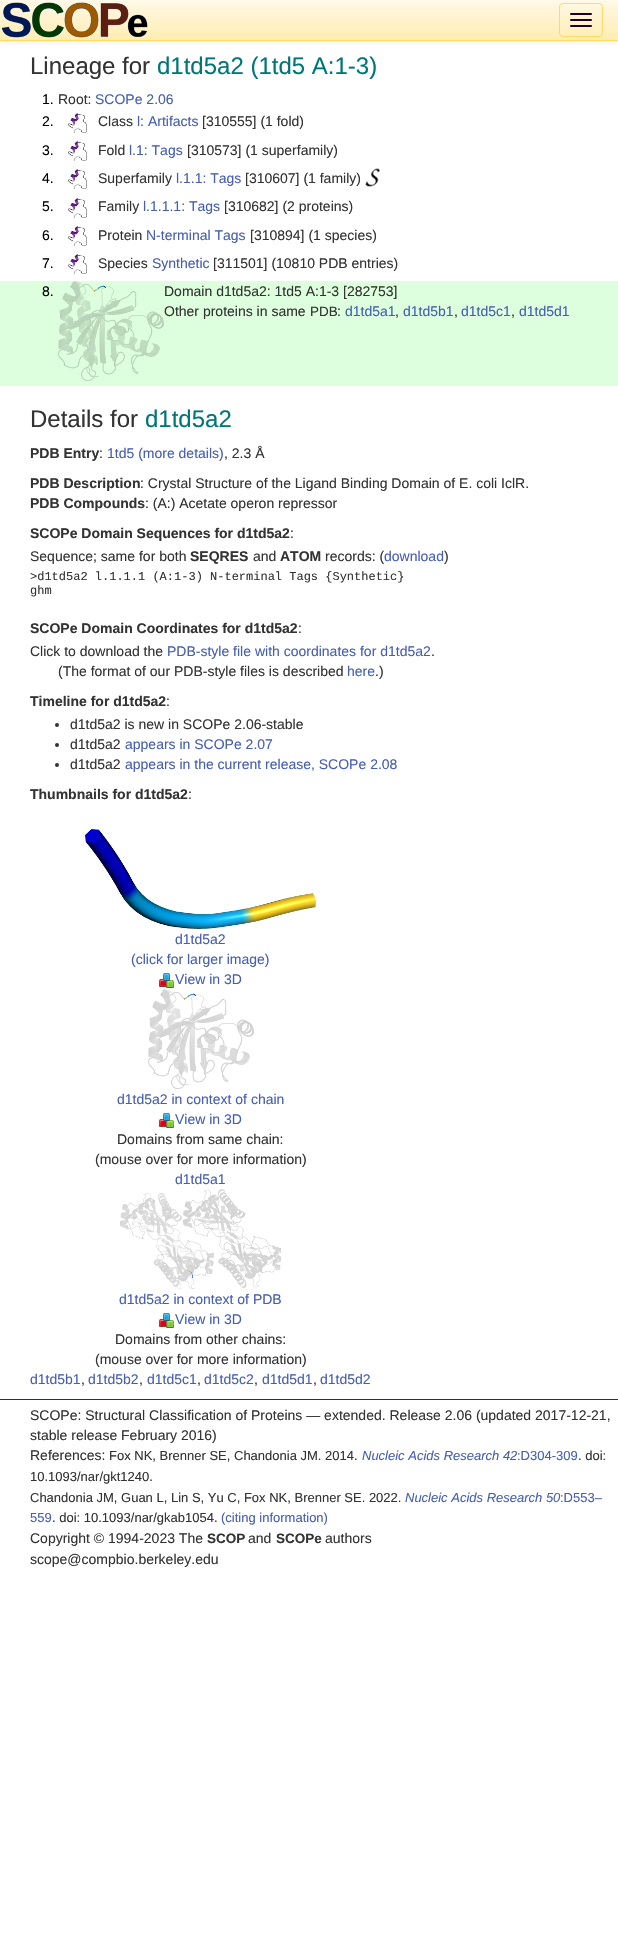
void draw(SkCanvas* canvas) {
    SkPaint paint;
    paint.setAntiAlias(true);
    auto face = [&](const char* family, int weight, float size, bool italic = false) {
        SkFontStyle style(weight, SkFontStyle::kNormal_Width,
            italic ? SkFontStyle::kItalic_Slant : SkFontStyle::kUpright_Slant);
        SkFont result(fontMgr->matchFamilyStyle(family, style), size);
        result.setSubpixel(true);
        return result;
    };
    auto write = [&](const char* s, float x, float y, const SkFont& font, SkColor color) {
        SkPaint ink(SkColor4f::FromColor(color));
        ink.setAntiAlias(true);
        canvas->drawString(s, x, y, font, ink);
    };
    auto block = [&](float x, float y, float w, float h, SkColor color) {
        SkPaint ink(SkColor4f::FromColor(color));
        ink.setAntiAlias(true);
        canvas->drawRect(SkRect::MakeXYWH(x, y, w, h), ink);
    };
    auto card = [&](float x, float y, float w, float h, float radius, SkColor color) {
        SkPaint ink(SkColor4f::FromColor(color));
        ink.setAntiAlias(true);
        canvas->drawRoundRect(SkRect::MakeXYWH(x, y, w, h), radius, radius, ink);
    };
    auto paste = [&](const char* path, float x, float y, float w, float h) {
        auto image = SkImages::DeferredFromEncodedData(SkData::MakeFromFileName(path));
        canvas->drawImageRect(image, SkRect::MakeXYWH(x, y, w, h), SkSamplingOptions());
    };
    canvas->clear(SK_ColorWHITE);
    paint.setColor(SkColorSetARGB(18, 0, 0, 0));
    paint.setMaskFilter(SkMaskFilter::MakeBlur(kNormal_SkBlurStyle, 2.5f));
    canvas->drawRect(SkRect::MakeXYWH(0, 1, 618, 41), paint);
    paint.setMaskFilter(nullptr);
    {
        const SkColor colors[] = {SkColorSetRGB(255, 249, 230), SkColorSetRGB(255, 237, 179)};
        const float stops[] = {0, 1};
        const SkPoint ends[] = {{309, 0}, {309, 40}};
        paint.setShader(SkGradientShader::MakeLinear(ends, colors, stops, 2, SkTileMode::kClamp));
        paint.setAlpha(255);
    }
    canvas->drawRect(SkRect::MakeXYWH(0, 1, 618, 39), paint);
    block(0, 0, 618, 1, SkColorSetRGB(255, 250, 233));
    block(0, 40, 618, 1, SkColorSetRGB(255, 218, 101));
    paste("pic1.png", 2, 2, 146, 36);
    paint.setStyle(SkPaint::kStroke_Style);
    paint.setStrokeWidth(1);
    paint.setShader(nullptr);
    paint.setColor(SkColorSetRGB(255, 218, 101));
    canvas->drawRoundRect(SkRect::MakeXYWH(559.5f, 3.5f, 43, 33), 3.5f, 3.5f, paint);
    card(570, 13, 22, 2, 1, SkColorSetRGB(29, 0, 43));
    card(570, 19, 22, 2, 1, SkColorSetRGB(29, 0, 43));
    card(570, 25, 22, 2, 1, SkColorSetRGB(29, 0, 43));
    auto kFont1 = face("Liberation Sans", 400, 24);
    write("Lineage for", 30, 74, kFont1, SkColorSetRGB(51, 51, 51));
    write("d1td5a2 (1td5 A:1-3)", 157, 74, kFont1, SkColorSetRGB(0, 119, 119));
    auto kFont2 = face("Liberation Sans", 400, 14);
    write("1.", 42, 104, kFont2, SK_ColorBLACK);
    write("Root:", 58, 104, kFont2, SkColorSetRGB(51, 51, 51));
    write("SCOPe 2.06", 95, 104, kFont2, SkColorSetRGB(70, 94, 180));
    write("2.", 42, 126, kFont2, SK_ColorBLACK);
    paste("pic2.png", 68, 113, 19, 20);
    write("Class", 98, 126, kFont2, SkColorSetRGB(51, 51, 51));
    write("l: Artifacts", 137, 126, kFont2, SkColorSetRGB(70, 94, 180));
    write("[310555] (1 fold)", 202, 126, kFont2, SkColorSetRGB(51, 51, 51));
    write("3.", 42, 155, kFont2, SK_ColorBLACK);
    paste("pic2.png", 68, 141, 19, 20);
    write("Fold", 98, 155, kFont2, SkColorSetRGB(51, 51, 51));
    write("l.1: Tags", 129, 155, kFont2, SkColorSetRGB(70, 94, 180));
    write("[310573] (1 superfamily)", 187, 155, kFont2, SkColorSetRGB(51, 51, 51));
    write("4.", 42, 183, kFont2, SK_ColorBLACK);
    paste("pic2.png", 68, 169, 19, 20);
    write("Superfamily", 98, 183, kFont2, SkColorSetRGB(51, 51, 51));
    write("l.1.1: Tags", 176, 183, kFont2, SkColorSetRGB(70, 94, 180));
    write("[310607] (1 family)", 245, 183, kFont2, SkColorSetRGB(51, 51, 51));
    paste("pic3.png", 365, 168, 15, 19);
    write("5.", 42, 211, kFont2, SK_ColorBLACK);
    paste("pic2.png", 68, 198, 19, 20);
    write("Family", 98, 211, kFont2, SkColorSetRGB(51, 51, 51));
    write("l.1.1.1: Tags", 143, 211, kFont2, SkColorSetRGB(70, 94, 180));
    write("[310682] (2 proteins)", 224, 211, kFont2, SkColorSetRGB(51, 51, 51));
    write("6.", 42, 240, kFont2, SK_ColorBLACK);
    paste("pic2.png", 68, 226, 19, 20);
    write("Protein", 98, 240, kFont2, SkColorSetRGB(51, 51, 51));
    write("N-terminal Tags", 146, 240, kFont2, SkColorSetRGB(70, 94, 180));
    write("[310894] (1 species)", 250, 240, kFont2, SkColorSetRGB(51, 51, 51));
    write("7.", 42, 268, kFont2, SK_ColorBLACK);
    paste("pic2.png", 68, 254, 19, 20);
    write("Species", 98, 268, kFont2, SkColorSetRGB(51, 51, 51));
    write("Synthetic", 152, 268, kFont2, SkColorSetRGB(70, 94, 180));
    write("[311501] (10810 PDB entries)", 213, 268, kFont2, SkColorSetRGB(51, 51, 51));
    block(0, 281, 618, 105, SkColorSetRGB(221, 255, 221));
    write("8.", 42, 296, kFont2, SK_ColorBLACK);
    paste("pic4.png", 58, 281, 106, 100);
    write("Domain d1td5a2: 1td5 A:1-3 [282753]", 164, 296, kFont2, SkColorSetRGB(51, 51, 51));
    write("Other proteins in same", 164, 316, kFont2, SkColorSetRGB(51, 51, 51));
    auto kFont3 = face("Liberation Sans", 400, 13.5f);
    write("PDB", 310, 316, kFont3, SkColorSetRGB(51, 51, 51));
    write(":", 337, 316, kFont2, SkColorSetRGB(51, 51, 51));
    write("d1td5a1", 345, 316, kFont2, SkColorSetRGB(70, 94, 180));
    write(",", 395, 316, kFont2, SkColorSetRGB(51, 51, 51));
    write("d1td5b1", 403, 316, kFont2, SkColorSetRGB(70, 94, 180));
    write(",", 454, 316, kFont2, SkColorSetRGB(51, 51, 51));
    write("d1td5c1", 461, 316, kFont2, SkColorSetRGB(70, 94, 180));
    write(",", 511, 316, kFont2, SkColorSetRGB(51, 51, 51));
    write("d1td5d1", 519, 316, kFont2, SkColorSetRGB(70, 94, 180));
    write("Details for", 30, 427, kFont1, SkColorSetRGB(51, 51, 51));
    write("d1td5a2", 145, 427, kFont1, SkColorSetRGB(0, 119, 119));
    auto kFont4 = face("Liberation Sans", 700, 14);
    write("PDB Entry", 30, 458, kFont4, SkColorSetRGB(51, 51, 51));
    write(":", 99, 458, kFont2, SkColorSetRGB(51, 51, 51));
    write("1td5 (more details)", 107, 458, kFont2, SkColorSetRGB(70, 94, 180));
    write(", 2.3 Å", 224, 458, kFont2, SkColorSetRGB(51, 51, 51));
    write("PDB Description", 30, 488, kFont4, SkColorSetRGB(51, 51, 51));
    write(": Crystal Structure of the Ligand Binding Domain of E. coli IclR.", 140, 488, kFont2, SkColorSetRGB(51, 51, 51));
    write("PDB Compounds", 30, 508, kFont4, SkColorSetRGB(51, 51, 51));
    write(": (A:) Acetate operon repressor", 145, 508, kFont2, SkColorSetRGB(51, 51, 51));
    write("SCOPe Domain Sequences for d1td5a2", 30, 538, kFont4, SkColorSetRGB(51, 51, 51));
    write(":", 290, 538, kFont2, SkColorSetRGB(51, 51, 51));
    write("Sequence; same for both", 30, 561, kFont2, SkColorSetRGB(51, 51, 51));
    write("SEQRES", 190, 561, kFont4, SkColorSetRGB(51, 51, 51));
    write("and", 253, 561, kFont2, SkColorSetRGB(51, 51, 51));
    write("ATOM", 280, 561, kFont4, SkColorSetRGB(51, 51, 51));
    write("records: (", 325, 561, kFont2, SkColorSetRGB(51, 51, 51));
    write("download", 384, 561, kFont2, SkColorSetRGB(70, 94, 180));
    write(")", 444, 561, kFont2, SkColorSetRGB(51, 51, 51));
    auto kFont5 = face("Liberation Mono", 400, 12);
    write(">d1td5a2 l.1.1.1 (A:1-3) N-terminal Tags {Synthetic}", 30, 580, kFont5, SkColorSetRGB(51, 51, 51));
    write("ghm", 30, 594, kFont5, SkColorSetRGB(51, 51, 51));
    write("SCOPe Domain Coordinates for d1td5a2", 30, 633, kFont4, SkColorSetRGB(51, 51, 51));
    write(":", 298, 633, kFont2, SkColorSetRGB(51, 51, 51));
    write("Click to download the", 30, 656, kFont2, SkColorSetRGB(51, 51, 51));
    write("PDB-style file with coordinates for d1td5a2", 167, 656, kFont2, SkColorSetRGB(70, 94, 180));
    write(".", 431, 656, kFont2, SkColorSetRGB(51, 51, 51));
    write("(The format of our PDB-style files is described", 58, 676, kFont2, SkColorSetRGB(51, 51, 51));
    write("here", 347, 676, kFont2, SkColorSetRGB(70, 94, 180));
    write(".)", 375, 676, kFont2, SkColorSetRGB(51, 51, 51));
    write("Timeline for d1td5a2", 30, 706, kFont4, SkColorSetRGB(51, 51, 51));
    write(":", 166, 706, kFont2, SkColorSetRGB(51, 51, 51));
    paint.setStyle(SkPaint::kFill_Style);
    paint.setColor(SkColorSetRGB(51, 51, 51));
    canvas->drawCircle(57, 725, 2, paint);
    write("d1td5a2 is new in SCOPe 2.06-stable", 70, 729, kFont2, SkColorSetRGB(51, 51, 51));
    canvas->drawCircle(57, 745, 2, paint);
    write("d1td5a2", 70, 749, kFont2, SkColorSetRGB(51, 51, 51));
    write("appears in SCOPe 2.07", 125, 749, kFont2, SkColorSetRGB(70, 94, 180));
    canvas->drawCircle(57, 765, 2, paint);
    write("d1td5a2", 70, 769, kFont2, SkColorSetRGB(51, 51, 51));
    write("appears in the current release, SCOPe 2.08", 125, 769, kFont2, SkColorSetRGB(70, 94, 180));
    write("Thumbnails for d1td5a2", 30, 799, kFont4, SkColorSetRGB(51, 51, 51));
    write(":", 188, 799, kFont2, SkColorSetRGB(51, 51, 51));
    paste("pic5.png", 85, 829, 231, 100);
    write("d1td5a2", 175, 944, kFont2, SkColorSetRGB(70, 94, 180));
    write("(click for larger image)", 131, 964, kFont2, SkColorSetRGB(70, 94, 180));
    paste("pic6.png", 159, 973, 15, 15);
    write("View in 3D", 175, 984, kFont2, SkColorSetRGB(70, 94, 180));
    paste("pic7.png", 148, 989, 106, 100);
    write("d1td5a2 in context of chain", 117, 1104, kFont2, SkColorSetRGB(70, 94, 180));
    paste("pic6.png", 159, 1113, 15, 15);
    write("View in 3D", 175, 1124, kFont2, SkColorSetRGB(70, 94, 180));
    write("Domains from same chain:", 117, 1144, kFont2, SkColorSetRGB(51, 51, 51));
    write("(mouse over for more information)", 95, 1164, kFont2, SkColorSetRGB(51, 51, 51));
    write("d1td5a1", 175, 1184, kFont2, SkColorSetRGB(70, 94, 180));
    paste("pic8.png", 120, 1189, 161, 100);
    write("d1td5a2 in context of PDB", 119, 1304, kFont2, SkColorSetRGB(70, 94, 180));
    paste("pic6.png", 159, 1313, 15, 15);
    write("View in 3D", 175, 1324, kFont2, SkColorSetRGB(70, 94, 180));
    write("Domains from other chains:", 115, 1344, kFont2, SkColorSetRGB(51, 51, 51));
    write("(mouse over for more information)", 95, 1364, kFont2, SkColorSetRGB(51, 51, 51));
    write("d1td5b1", 30, 1384, kFont2, SkColorSetRGB(70, 94, 180));
    write(",", 81, 1384, kFont2, SkColorSetRGB(51, 51, 51));
    write("d1td5b2", 88, 1384, kFont2, SkColorSetRGB(70, 94, 180));
    write(",", 139, 1384, kFont2, SkColorSetRGB(51, 51, 51));
    write("d1td5c1", 147, 1384, kFont2, SkColorSetRGB(70, 94, 180));
    write(",", 197, 1384, kFont2, SkColorSetRGB(51, 51, 51));
    write("d1td5c2", 204, 1384, kFont2, SkColorSetRGB(70, 94, 180));
    write(",", 254, 1384, kFont2, SkColorSetRGB(51, 51, 51));
    write("d1td5d1", 262, 1384, kFont2, SkColorSetRGB(70, 94, 180));
    write(",", 313, 1384, kFont2, SkColorSetRGB(51, 51, 51));
    write("d1td5d2", 320, 1384, kFont2, SkColorSetRGB(70, 94, 180));
    block(0, 1399, 618, 1, SkColorSetRGB(102, 0, 153));
    write("SCOPe: Structural Classification of Proteins — extended. Release 2.06 (updated 2017-12-21,", 30, 1420, kFont2, SkColorSetRGB(51, 51, 51));
    write("stable release February 2016)", 30, 1440, kFont2, SkColorSetRGB(51, 51, 51));
    write("References:", 30, 1460, kFont2, SkColorSetRGB(51, 51, 51));
    auto kFont6 = face("Liberation Sans", 400, 13);
    write("Fox NK, Brenner SE, Chandonia JM. 2014.", 109, 1460, kFont6, SkColorSetRGB(51, 51, 51));
    auto kFont7 = face("Liberation Sans", 400, 13, true);
    write("Nucleic Acids Research 42", 362, 1460, kFont7, SkColorSetRGB(70, 94, 180));
    write(":D304-309", 517, 1460, kFont6, SkColorSetRGB(70, 94, 180));
    write(". doi:", 578, 1460, kFont6, SkColorSetRGB(51, 51, 51));
    write("10.1093/nar/gkt1240.", 30, 1481, kFont6, SkColorSetRGB(51, 51, 51));
    write("Chandonia JM, Guan L, Lin S, Yu C, Fox NK, Brenner SE. 2022.", 30, 1502, kFont6, SkColorSetRGB(51, 51, 51));
    write("Nucleic Acids Research 50", 405, 1502, kFont7, SkColorSetRGB(70, 94, 180));
    write(":D553–", 560, 1502, kFont6, SkColorSetRGB(70, 94, 180));
    write("559", 30, 1522, kFont6, SkColorSetRGB(70, 94, 180));
    write(". doi: 10.1093/nar/gkab1054.", 52, 1522, kFont6, SkColorSetRGB(51, 51, 51));
    write("(citing information)", 221, 1522, kFont6, SkColorSetRGB(70, 94, 180));
    write("Copyright © 1994-2023 The", 30, 1543, kFont2, SkColorSetRGB(51, 51, 51));
    auto kFont8 = face("Liberation Sans", 700, 13.5f);
    write("SCOP", 207, 1543, kFont8, SkColorSetRGB(51, 51, 51));
    write("and", 248, 1543, kFont2, SkColorSetRGB(51, 51, 51));
    write("SCOPe", 276, 1543, kFont8, SkColorSetRGB(51, 51, 51));
    write("authors", 325, 1543, kFont2, SkColorSetRGB(51, 51, 51));
    write("scope@compbio.berkeley.edu", 30, 1564, kFont2, SkColorSetRGB(51, 51, 51));
}
